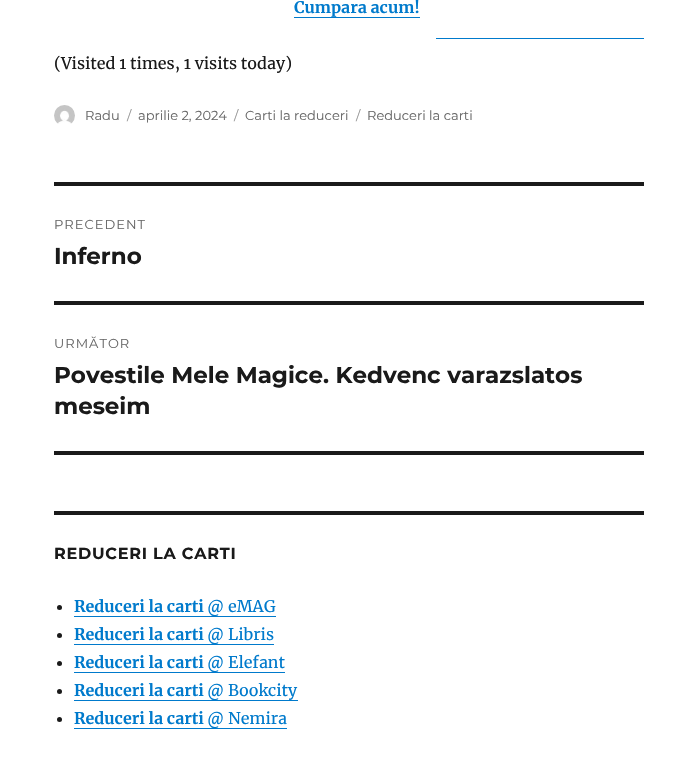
void draw(SkCanvas* canvas) {
    SkPaint paint;
    paint.setAntiAlias(true);
    auto face = [&](const char* family, int weight, float size, bool italic = false) {
        SkFontStyle style(weight, SkFontStyle::kNormal_Width,
            italic ? SkFontStyle::kItalic_Slant : SkFontStyle::kUpright_Slant);
        SkFont result(fontMgr->matchFamilyStyle(family, style), size);
        result.setSubpixel(true);
        return result;
    };
    auto write = [&](const char* s, float x, float y, const SkFont& font, SkColor color) {
        SkPaint ink(SkColor4f::FromColor(color));
        ink.setAntiAlias(true);
        canvas->drawString(s, x, y, font, ink);
    };
    auto writeSpaced = [&](const char* s, float x, float y, const SkFont& font, const SkPaint& ink, float letter, float word) {
        std::vector<SkGlyphID> glyphs(font.countText(s, strlen(s), SkTextEncoding::kUTF8));
        std::vector<float> xs(glyphs.size());
        font.textToGlyphs(s, strlen(s), SkTextEncoding::kUTF8, glyphs);
        font.getXPos(glyphs, xs, x);
        float extra = 0;
        for (size_t i = 0; i < glyphs.size(); i++) {
            xs[i] += extra;
            extra += letter + word * (glyphs[i] == font.unicharToGlyph(' '));
        }
        canvas->drawTextBlob(SkTextBlob::MakeFromPosHGlyphs(glyphs, xs, y, font), 0, 0, ink);
    };
    auto block = [&](float x, float y, float w, float h, SkColor color) {
        SkPaint ink(SkColor4f::FromColor(color));
        ink.setAntiAlias(true);
        canvas->drawRect(SkRect::MakeXYWH(x, y, w, h), ink);
    };
    auto paste = [&](const char* path, float x, float y, float w, float h) {
        auto image = SkImages::DeferredFromEncodedData(SkData::MakeFromFileName(path));
        canvas->drawImageRect(image, SkRect::MakeXYWH(x, y, w, h), SkSamplingOptions());
    };
    canvas->clear(SK_ColorWHITE);
    auto kFont1 = face("Merriweather", 700, 16);
    write("Cumpara acum!", 294, 13, kFont1, SkColorSetRGB(0, 122, 204));
    block(294, 17, 126, 1, SkColorSetRGB(0, 122, 204));
    block(436, 38, 208, 1, SkColorSetRGB(0, 122, 204));
    auto kFont2 = face("Merriweather", 400, 16);
    write("(Visited 1 times, 1 visits today)", 54, 69, kFont2, SkColorSetRGB(26, 26, 26));
    paste("pic1.png", 54, 105, 21, 19);
    auto kFont3 = face("Montserrat", 100, 13);
    write("Radu", 85, 120, kFont3, SkColorSetRGB(104, 104, 104));
    write("/", 127, 120, kFont3, SkColorSetRGB(149, 149, 149));
    write("aprilie 2, 2024", 138, 120, kFont3, SkColorSetRGB(104, 104, 104));
    write("/", 234, 120, kFont3, SkColorSetRGB(149, 149, 149));
    write("Carti la reduceri", 245, 120, kFont3, SkColorSetRGB(104, 104, 104));
    write("/", 356, 120, kFont3, SkColorSetRGB(149, 149, 149));
    write("Reduceri la carti", 367, 120, kFont3, SkColorSetRGB(104, 104, 104));
    block(54, 182, 590, 4, SkColorSetRGB(26, 26, 26));
    block(54, 451, 590, 4, SkColorSetRGB(26, 26, 26));
    paint.setColor(SkColorSetRGB(104, 104, 104));
    writeSpaced("PRECEDENT", 54, 229, kFont3, paint, 1, 0);
    auto kFont4 = face("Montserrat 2", 100, 23);
    write("Inferno", 54, 264, kFont4, SkColorSetRGB(26, 26, 26));
    block(54, 301, 590, 4, SkColorSetRGB(26, 26, 26));
    writeSpaced("URMĂTOR", 54, 348, kFont3, paint, 1, 0);
    write("Povestile Mele Magice. Kedvenc varazslatos", 54, 383, kFont4, SkColorSetRGB(26, 26, 26));
    write("meseim", 54, 414, kFont4, SkColorSetRGB(26, 26, 26));
    block(54, 511, 590, 4, SkColorSetRGB(26, 26, 26));
    auto kFont5 = face("Montserrat 2", 100, 16);
    paint.setColor(SkColorSetRGB(26, 26, 26));
    writeSpaced("REDUCERI LA CARTI", 54, 559, kFont5, paint, 0.75f, 0);
    canvas->drawCircle(59.5f, 607.5f, 2.5f, paint);
    write("Reduceri la carti", 74, 612, kFont1, SkColorSetRGB(0, 122, 204));
    block(74, 616, 202, 1, SkColorSetRGB(0, 122, 204));
    write("@ eMAG", 207, 612, kFont2, SkColorSetRGB(0, 122, 204));
    canvas->drawCircle(59.5f, 635.5f, 2.5f, paint);
    write("Reduceri la carti", 74, 640, kFont1, SkColorSetRGB(0, 122, 204));
    block(74, 644, 200, 1, SkColorSetRGB(0, 122, 204));
    write("@ Libris", 207, 640, kFont2, SkColorSetRGB(0, 122, 204));
    canvas->drawCircle(59.5f, 663.5f, 2.5f, paint);
    write("Reduceri la carti", 74, 668, kFont1, SkColorSetRGB(0, 122, 204));
    block(74, 672, 211, 1, SkColorSetRGB(0, 122, 204));
    write("@ Elefant", 207, 668, kFont2, SkColorSetRGB(0, 122, 204));
    canvas->drawCircle(59.5f, 691.5f, 2.5f, paint);
    write("Reduceri la carti", 74, 696, kFont1, SkColorSetRGB(0, 122, 204));
    block(74, 700, 224, 1, SkColorSetRGB(0, 122, 204));
    write("@ Bookcity", 207, 696, kFont2, SkColorSetRGB(0, 122, 204));
    canvas->drawCircle(59.5f, 719.5f, 2.5f, paint);
    write("Reduceri la carti", 74, 724, kFont1, SkColorSetRGB(0, 122, 204));
    block(74, 728, 213, 1, SkColorSetRGB(0, 122, 204));
    write("@ Nemira", 207, 724, kFont2, SkColorSetRGB(0, 122, 204));
}
